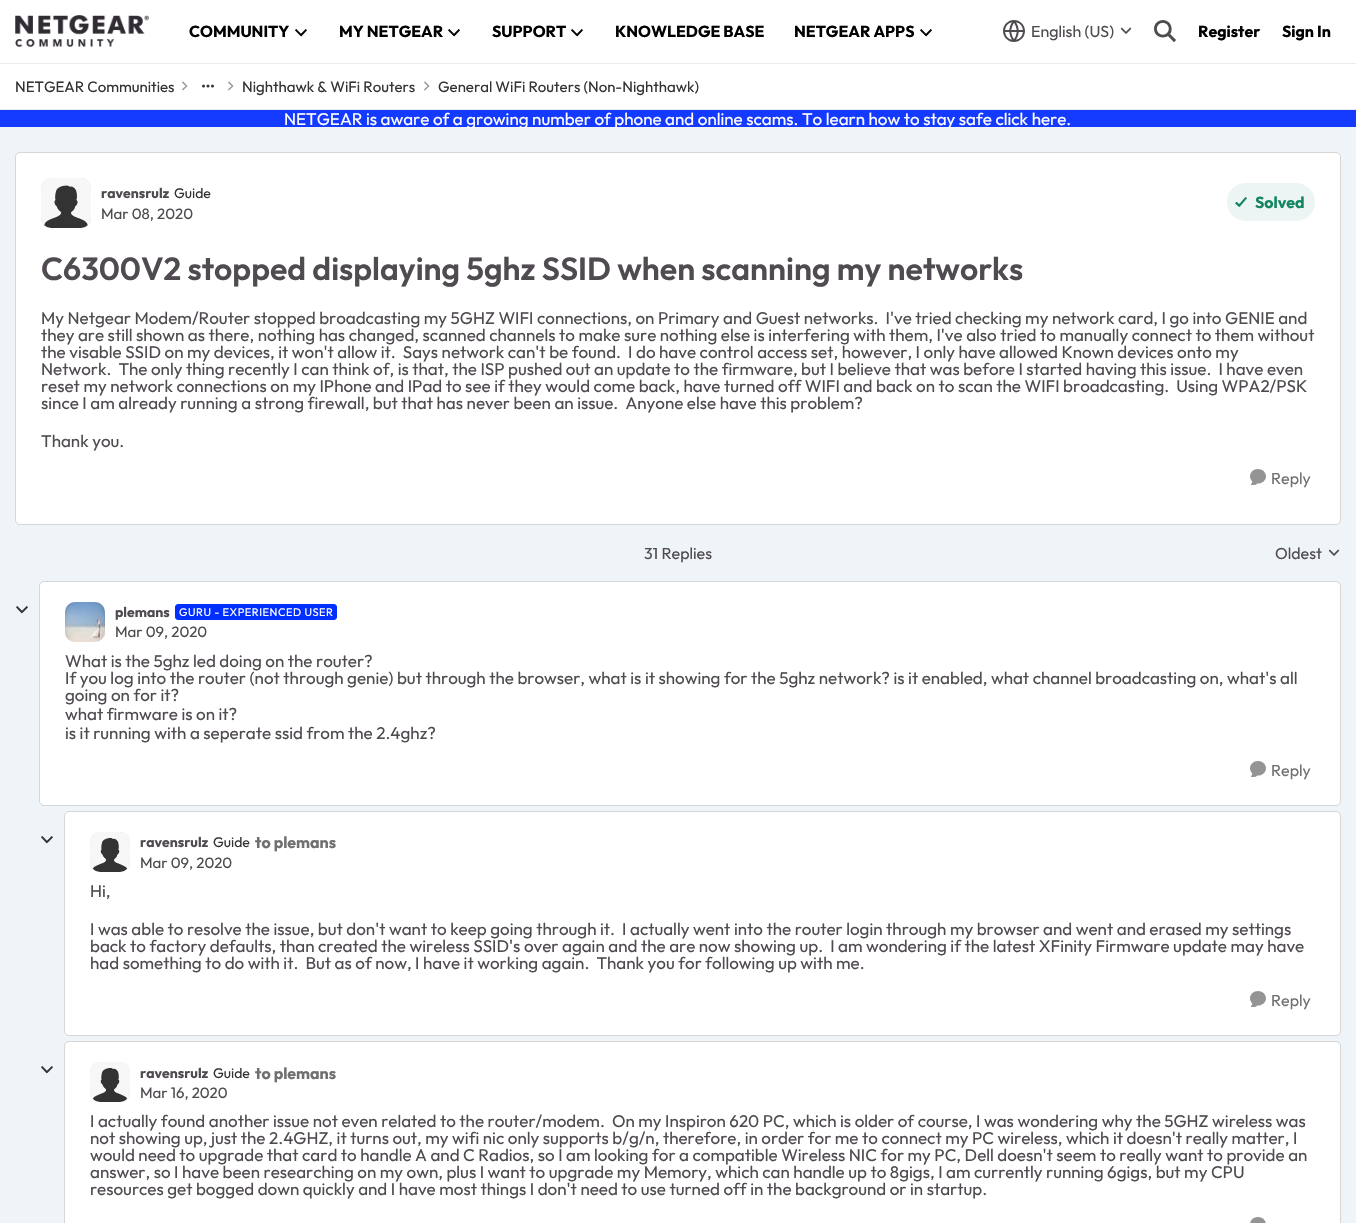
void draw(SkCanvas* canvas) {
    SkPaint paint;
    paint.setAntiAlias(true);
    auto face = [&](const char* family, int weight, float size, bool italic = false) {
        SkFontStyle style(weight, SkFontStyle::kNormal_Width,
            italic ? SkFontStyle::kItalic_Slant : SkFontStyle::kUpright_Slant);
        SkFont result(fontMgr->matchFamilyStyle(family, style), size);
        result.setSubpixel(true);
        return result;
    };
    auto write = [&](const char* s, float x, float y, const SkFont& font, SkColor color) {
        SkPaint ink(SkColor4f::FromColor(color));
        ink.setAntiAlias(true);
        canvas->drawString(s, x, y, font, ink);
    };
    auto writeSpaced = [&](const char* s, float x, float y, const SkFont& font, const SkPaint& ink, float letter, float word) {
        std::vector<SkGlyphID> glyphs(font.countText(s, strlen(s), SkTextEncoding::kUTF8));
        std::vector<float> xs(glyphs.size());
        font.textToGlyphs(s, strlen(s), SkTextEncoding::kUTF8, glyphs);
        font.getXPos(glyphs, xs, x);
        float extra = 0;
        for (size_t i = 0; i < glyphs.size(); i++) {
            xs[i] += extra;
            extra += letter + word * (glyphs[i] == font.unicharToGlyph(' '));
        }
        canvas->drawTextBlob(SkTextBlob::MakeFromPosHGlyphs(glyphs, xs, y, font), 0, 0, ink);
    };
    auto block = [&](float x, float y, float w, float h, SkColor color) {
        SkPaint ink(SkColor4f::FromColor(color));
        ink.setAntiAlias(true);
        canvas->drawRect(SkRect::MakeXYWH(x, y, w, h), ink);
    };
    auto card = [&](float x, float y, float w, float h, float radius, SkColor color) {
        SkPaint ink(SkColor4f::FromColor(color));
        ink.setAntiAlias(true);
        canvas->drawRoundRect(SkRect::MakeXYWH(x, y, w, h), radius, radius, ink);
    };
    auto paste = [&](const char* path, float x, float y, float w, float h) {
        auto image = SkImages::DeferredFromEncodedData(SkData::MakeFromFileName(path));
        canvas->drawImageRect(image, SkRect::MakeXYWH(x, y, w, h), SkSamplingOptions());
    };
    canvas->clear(SkColorSetRGB(239, 244, 249));
    block(0, 0, 1356, 109, SK_ColorWHITE);
    block(0, 63, 1356, 1, SkColorSetRGB(235, 235, 235));
    paste("pic1.png", 15, 15, 134, 32);
    auto kFont1 = face("Outfit", 700, 16);
    write("COMMUNITY", 189, 37, kFont1, SK_ColorBLACK);
    paste("pic2.png", 295, 29, 12, 8);
    write("MY NETGEAR", 339, 37, kFont1, SK_ColorBLACK);
    paste("pic2.png", 448, 29, 12, 8);
    write("SUPPORT", 492, 37, kFont1, SK_ColorBLACK);
    paste("pic2.png", 571, 29, 12, 8);
    write("KNOWLEDGE BASE", 615, 37, kFont1, SK_ColorBLACK);
    write("NETGEAR APPS", 794, 37, kFont1, SK_ColorBLACK);
    paste("pic2.png", 920, 29, 12, 8);
    paste("pic3.png", 1003, 20, 22, 22);
    auto kFont2 = face("Outfit", 400, 16);
    write("English (US)", 1031, 37, kFont2, SkColorSetRGB(80, 75, 81));
    paste("pic4.png", 1120, 27, 12, 7);
    paste("pic5.png", 1154, 20, 22, 23);
    write("Register", 1198, 37, kFont1, SK_ColorBLACK);
    write("Sign In", 1282, 37, kFont1, SK_ColorBLACK);
    block(0, 109, 1356, 1, SkColorSetRGB(235, 235, 235));
    auto kFont3 = face("Outfit", 400, 15);
    write("NETGEAR Communities", 15, 92, kFont3, SkColorSetRGB(51, 51, 51));
    paste("pic6.png", 182, 81, 6, 10);
    paste("pic7.png", 202, 84, 12, 4);
    paste("pic6.png", 228, 81, 6, 10);
    write("Nighthawk & WiFi Routers", 242, 92, kFont3, SkColorSetRGB(51, 51, 51));
    paste("pic6.png", 424, 81, 6, 10);
    write("General WiFi Routers (Non-Nighthawk)", 438, 92, kFont3, SkColorSetRGB(51, 51, 51));
    block(0, 110, 1356, 17, SkColorSetRGB(20, 57, 255));
    auto kFont4 = face("Outfit", 400, 17);
    write("NETGEAR is aware of a growing number of phone and online scams. To learn how to stay safe click here.", 284, 125, kFont4, SK_ColorWHITE);
    card(15, 152, 1326, 373, 5, SK_ColorWHITE);
    paint.setStyle(SkPaint::kStroke_Style);
    paint.setStrokeWidth(1);
    paint.setColor(SkColorSetARGB(41, 0, 0, 0));
    canvas->drawRoundRect(SkRect::MakeXYWH(15.5f, 152.5f, 1325, 372), 4.5f, 4.5f, paint);
    card(41, 178, 50, 50, 10, SkColorSetRGB(217, 217, 217));
    paste("pic8.png", 41, 178, 50, 50);
    auto kFont5 = face("Outfit", 700, 14);
    write("ravensrulz", 101, 198, kFont5, SkColorSetRGB(80, 75, 81));
    auto kFont6 = face("Outfit", 400, 14);
    write("Guide", 174, 198, kFont6, SkColorSetRGB(51, 51, 51));
    write("Mar 08, 2020", 101, 219, kFont3, SkColorSetRGB(80, 75, 81));
    card(1227, 183, 88, 38, 19, SkColorSetRGB(236, 245, 243));
    paste("pic9.png", 1235, 197, 12, 10);
    write("Solved", 1255, 208, kFont1, SkColorSetRGB(20, 133, 99));
    auto kFont7 = face("Outfit", 600, 32);
    write("C6300V2 stopped displaying 5ghz SSID when scanning my networks", 41, 280, kFont7, SkColorSetRGB(80, 75, 81));
    write("My Netgear Modem/Router stopped broadcasting my 5GHZ WIFI connections, on Primary and Guest networks.  I've tried checking my network card, I go into GENIE and", 41, 324, kFont4, SkColorSetRGB(80, 75, 81));
    write("they are still shown as there, nothing has changed, scanned channels to make sure nothing else is interfering with them, I've also tried to manually connect to them without", 41, 341, kFont4, SkColorSetRGB(80, 75, 81));
    write("the visable SSID on my devices, it won't allow it.  Says network can't be found.  I do have control access set, however, I only have allowed Known devices onto my", 41, 358, kFont4, SkColorSetRGB(80, 75, 81));
    write("Network.  The only thing recently I can think of, is that, the ISP pushed out an update to the firmware, but I believe that was before I started having this issue.  I have even", 41, 375, kFont4, SkColorSetRGB(80, 75, 81));
    write("reset my network connections on my IPhone and IPad to see if they would come back, have turned off WIFI and back on to scan the WIFI broadcasting.  Using WPA2/PSK", 41, 392, kFont4, SkColorSetRGB(80, 75, 81));
    write("since I am already running a strong firewall, but that has never been an issue.  Anyone else have this problem?", 41, 409, kFont4, SkColorSetRGB(80, 75, 81));
    write("Thank you.", 41, 447, kFont4, SkColorSetRGB(80, 75, 81));
    paste("pic10.png", 1250, 469, 16, 16);
    write("Reply", 1271, 484, kFont2, SkColorSetRGB(112, 112, 112));
    write("31 Replies", 644, 559, kFont2, SkColorSetRGB(80, 75, 81));
    write("Oldest", 1275, 559, kFont2, SkColorSetRGB(80, 75, 81));
    paste("pic11.png", 1328, 549, 12, 7);
    paste("pic12.png", 16, 606, 12, 8);
    card(39, 581, 1302, 225, 5, SK_ColorWHITE);
    canvas->drawRoundRect(SkRect::MakeXYWH(39.5f, 581.5f, 1301, 224), 4.5f, 4.5f, paint);
    card(65, 602, 40, 40, 10, SkColorSetRGB(217, 217, 217));
    paste("pic13.png", 65, 602, 40, 40);
    write("plemans", 115, 617, kFont5, SkColorSetRGB(80, 75, 81));
    paint.setStyle(SkPaint::kFill_Style);
    paint.setColor(SkColorSetRGB(0, 47, 255));
    canvas->drawRoundRect(SkRect::MakeXYWH(175.5f, 604.5f, 161, 15), 2.5f, 2.5f, paint);
    paint.setStyle(SkPaint::kStroke_Style);
    canvas->drawRoundRect(SkRect::MakeXYWH(175.5f, 604.5f, 161, 15), 2.5f, 2.5f, paint);
    auto kFont8 = face("Outfit", 400, 11);
    paint.setStyle(SkPaint::kFill_Style);
    paint.setColor(SK_ColorWHITE);
    writeSpaced("GURU - EXPERIENCED USER", 179, 616, kFont8, paint, 0.5f, 0);
    write("Mar 09, 2020", 115, 637, kFont3, SkColorSetRGB(80, 75, 81));
    write("What is the 5ghz led doing on the router?", 65, 667, kFont4, SkColorSetRGB(80, 75, 81));
    write("If you log into the router (not through genie) but through the browser, what is it showing for the 5ghz network? is it enabled, what channel broadcasting on, what's all", 65, 684, kFont4, SkColorSetRGB(80, 75, 81));
    write("going on for it?", 65, 701, kFont4, SkColorSetRGB(80, 75, 81));
    write("what firmware is on it?", 65, 720, kFont4, SkColorSetRGB(80, 75, 81));
    write("is it running with a seperate ssid from the 2.4ghz?", 65, 739, kFont4, SkColorSetRGB(80, 75, 81));
    paste("pic14.png", 1250, 761, 16, 16);
    write("Reply", 1271, 776, kFont2, SkColorSetRGB(112, 112, 112));
    paste("pic12.png", 41, 836, 12, 8);
    card(64, 811, 1277, 225, 5, SK_ColorWHITE);
    paint.setStyle(SkPaint::kStroke_Style);
    paint.setColor(SkColorSetARGB(41, 0, 0, 0));
    canvas->drawRoundRect(SkRect::MakeXYWH(64.5f, 811.5f, 1276, 224), 4.5f, 4.5f, paint);
    card(90, 832, 40, 40, 10, SkColorSetRGB(217, 217, 217));
    paste("pic15.png", 90, 832, 40, 40);
    write("ravensrulz", 140, 847, kFont5, SkColorSetRGB(80, 75, 81));
    write("Guide", 213, 847, kFont6, SkColorSetRGB(51, 51, 51));
    write("to plemans", 255, 848, kFont1, SkColorSetRGB(112, 112, 112));
    write("Mar 09, 2020", 140, 868, kFont3, SkColorSetRGB(80, 75, 81));
    write("Hi,", 90, 897, kFont4, SkColorSetRGB(80, 75, 81));
    write("I was able to resolve the issue, but don't want to keep going through it.  I actually went into the router login through my browser and went and erased my settings", 90, 935, kFont4, SkColorSetRGB(80, 75, 81));
    write("back to factory defaults, than created the wireless SSID's over again and the are now showing up.  I am wondering if the latest XFinity Firmware update may have", 90, 952, kFont4, SkColorSetRGB(80, 75, 81));
    write("had something to do with it.  But as of now, I have it working again.  Thank you for following up with me.", 90, 969, kFont4, SkColorSetRGB(80, 75, 81));
    paste("pic10.png", 1250, 991, 16, 16);
    write("Reply", 1271, 1006, kFont2, SkColorSetRGB(112, 112, 112));
    paste("pic12.png", 41, 1066, 12, 8);
    card(64, 1041, 1277, 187, 5, SK_ColorWHITE);
    canvas->drawRoundRect(SkRect::MakeXYWH(64.5f, 1041.5f, 1276, 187), 4.5f, 4.5f, paint);
    card(90, 1062, 40, 40, 10, SkColorSetRGB(217, 217, 217));
    paste("pic15.png", 90, 1062, 40, 40);
    write("ravensrulz", 140, 1078, kFont5, SkColorSetRGB(80, 75, 81));
    write("Guide", 213, 1078, kFont6, SkColorSetRGB(51, 51, 51));
    write("to plemans", 255, 1079, kFont1, SkColorSetRGB(112, 112, 112));
    write("Mar 16, 2020", 140, 1098, kFont3, SkColorSetRGB(80, 75, 81));
    write("I actually found another issue not even related to the router/modem.  On my Inspiron 620 PC, which is older of course, I was wondering why the 5GHZ wireless was", 90, 1127, kFont4, SkColorSetRGB(80, 75, 81));
    write("not showing up, just the 2.4GHZ, it turns out, my wifi nic only supports b/g/n, therefore, in order for me to connect my PC wireless, which it doesn't really matter, I", 90, 1144, kFont4, SkColorSetRGB(80, 75, 81));
    write("would need to upgrade that card to handle A and C Radios, so I am looking for a compatible Wireless NIC for my PC, Dell doesn't seem to really want to provide an", 90, 1161, kFont4, SkColorSetRGB(80, 75, 81));
    write("answer, so I have been researching on my own, plus I want to upgrade my Memory, which can handle up to 8gigs, I am currently running 6gigs, but my CPU", 90, 1178, kFont4, SkColorSetRGB(80, 75, 81));
    write("resources get bogged down quickly and I have most things I don't need to use turned off in the background or in startup.", 90, 1195, kFont4, SkColorSetRGB(80, 75, 81));
    paste("pic16.png", 1250, 1217, 16, 6);
}
